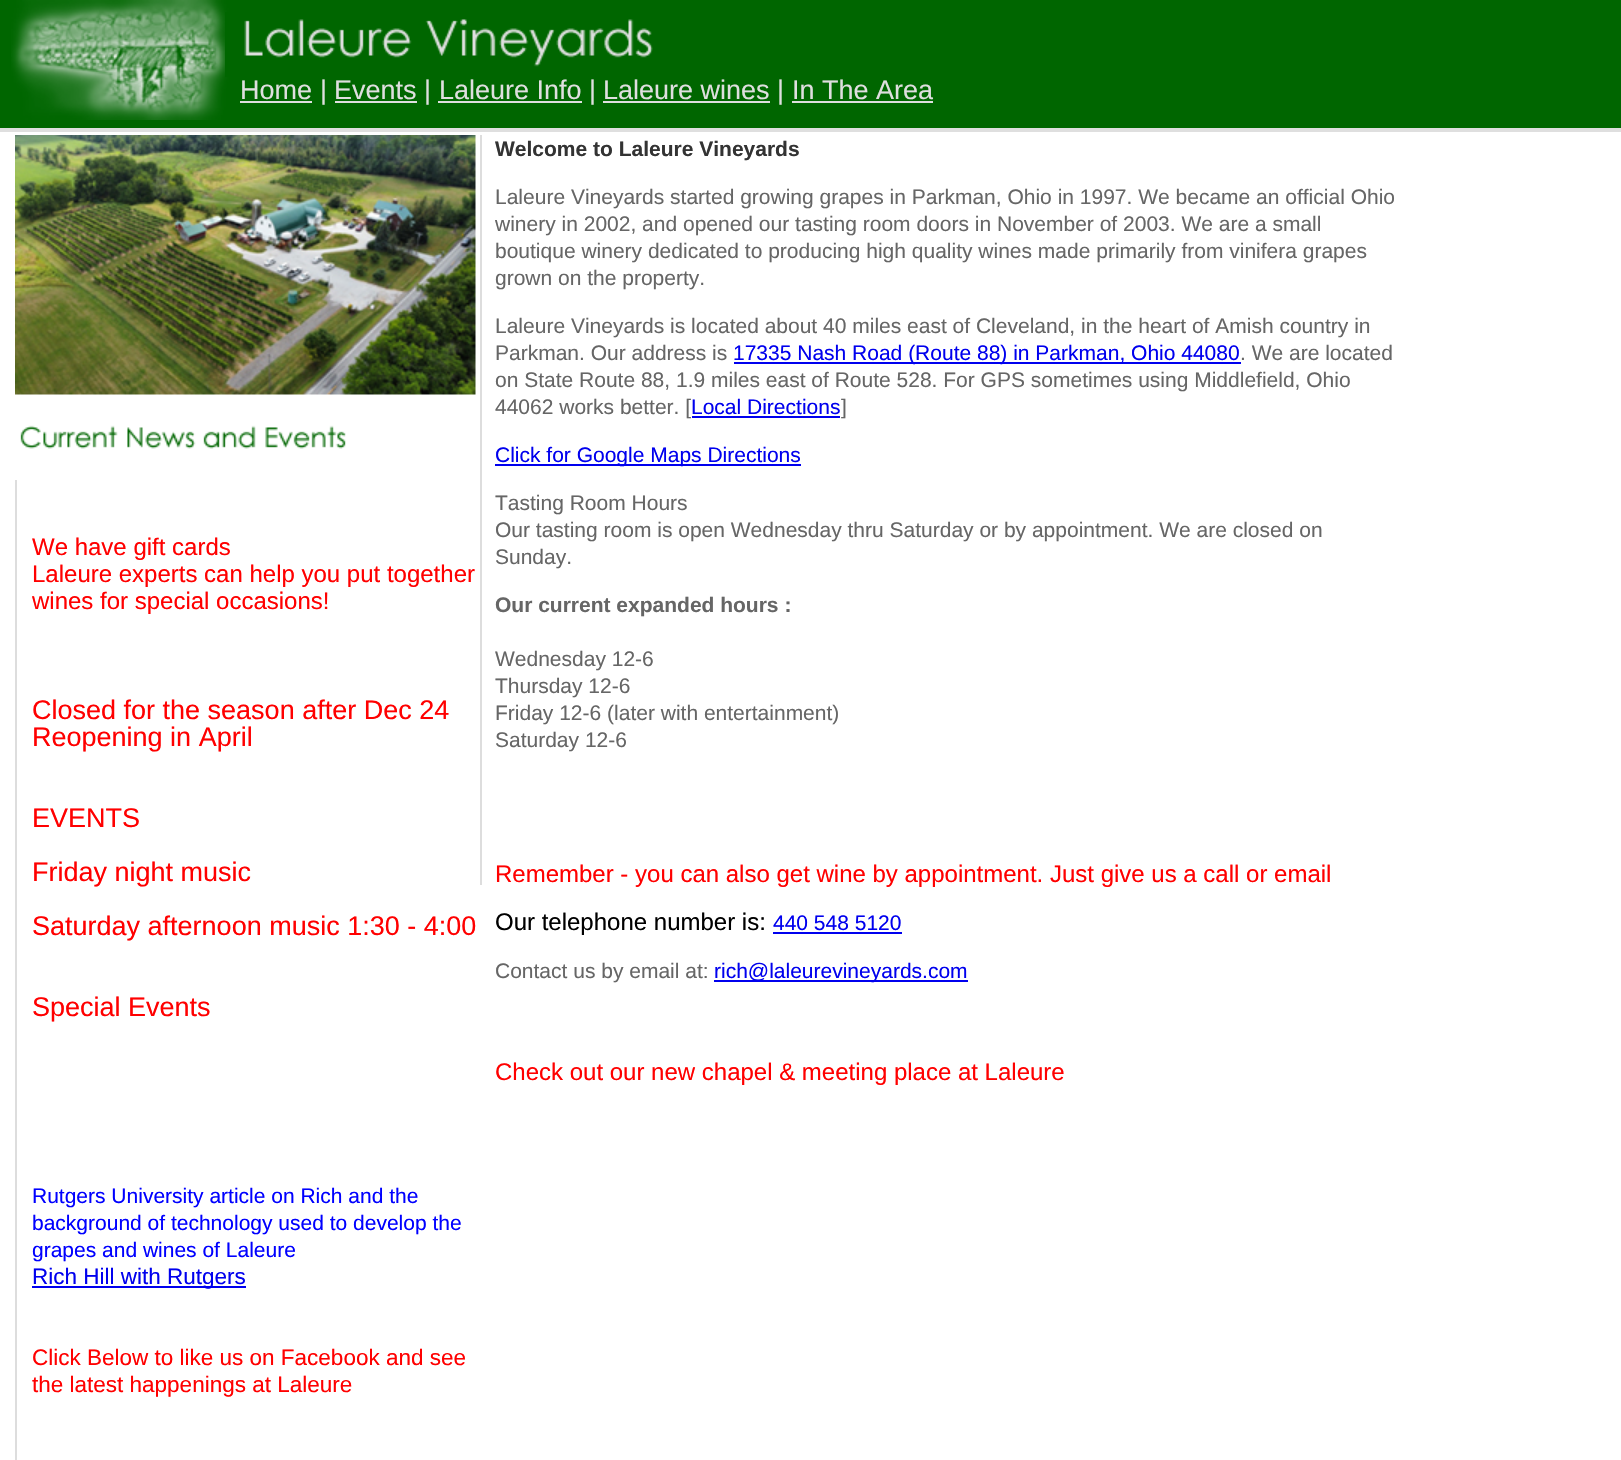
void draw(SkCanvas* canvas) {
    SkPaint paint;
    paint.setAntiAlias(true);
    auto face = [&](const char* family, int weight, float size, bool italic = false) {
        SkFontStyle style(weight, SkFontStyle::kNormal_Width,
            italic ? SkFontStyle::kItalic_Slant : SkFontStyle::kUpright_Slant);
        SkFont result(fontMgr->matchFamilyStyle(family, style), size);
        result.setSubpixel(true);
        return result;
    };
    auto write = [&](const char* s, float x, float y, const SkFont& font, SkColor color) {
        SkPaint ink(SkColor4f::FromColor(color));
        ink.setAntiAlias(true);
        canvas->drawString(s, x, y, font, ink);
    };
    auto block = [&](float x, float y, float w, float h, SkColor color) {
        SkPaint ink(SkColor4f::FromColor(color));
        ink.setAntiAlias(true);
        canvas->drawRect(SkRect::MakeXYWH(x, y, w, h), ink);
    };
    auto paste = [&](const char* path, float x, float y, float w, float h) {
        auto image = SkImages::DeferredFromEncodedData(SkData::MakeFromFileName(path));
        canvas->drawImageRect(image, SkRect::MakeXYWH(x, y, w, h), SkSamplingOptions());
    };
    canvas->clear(SK_ColorWHITE);
    block(0, 0, 1621, 128, SkColorSetRGB(0, 102, 0));
    paste("pic1.png", 11, 0, 221, 120);
    paste("pic2.png", 225, 12, 428, 65);
    auto kFont1 = face("Liberation Sans", 400, 27);
    write("Home", 240, 99, kFont1, SkColorSetRGB(223, 223, 223));
    block(240, 101, 72, 2, SkColorSetRGB(223, 223, 223));
    write("|", 320, 99, kFont1, SkColorSetRGB(223, 223, 223));
    write("Events", 334, 99, kFont1, SkColorSetRGB(223, 223, 223));
    block(335, 101, 82, 2, SkColorSetRGB(223, 223, 223));
    write("|", 424, 99, kFont1, SkColorSetRGB(223, 223, 223));
    write("Laleure Info", 439, 99, kFont1, SkColorSetRGB(223, 223, 223));
    block(438, 101, 144, 2, SkColorSetRGB(223, 223, 223));
    write("|", 589, 99, kFont1, SkColorSetRGB(223, 223, 223));
    write("Laleure wines", 603, 99, kFont1, SkColorSetRGB(223, 223, 223));
    block(603, 101, 167, 2, SkColorSetRGB(223, 223, 223));
    write("|", 777, 99, kFont1, SkColorSetRGB(223, 223, 223));
    write("In The Area", 792, 99, kFont1, SkColorSetRGB(223, 223, 223));
    block(792, 101, 141, 2, SkColorSetRGB(223, 223, 223));
    block(0, 128, 1621, 4, SkColorSetRGB(223, 223, 223));
    paste("pic3.png", 15, 135, 461, 260);
    block(480, 135, 2, 750, SkColorSetRGB(221, 221, 221));
    auto kFont2 = face("Liberation Sans", 700, 21);
    write("Welcome to Laleure Vineyards", 495, 156, kFont2, SkColorSetRGB(51, 51, 51));
    auto kFont3 = face("Liberation Sans", 400, 21);
    write("Laleure Vineyards started growing grapes in Parkman, Ohio in 1997. We became an official Ohio", 495, 204, kFont3, SkColorSetRGB(102, 102, 102));
    write("winery in 2002, and opened our tasting room doors in November of 2003. We are a small", 495, 231, kFont3, SkColorSetRGB(102, 102, 102));
    write("boutique winery dedicated to producing high quality wines made primarily from vinifera grapes", 495, 258, kFont3, SkColorSetRGB(102, 102, 102));
    write("grown on the property.", 495, 285, kFont3, SkColorSetRGB(102, 102, 102));
    write("Laleure Vineyards is located about 40 miles east of Cleveland, in the heart of Amish country in", 495, 333, kFont3, SkColorSetRGB(102, 102, 102));
    write("Parkman. Our address is", 495, 360, kFont3, SkColorSetRGB(102, 102, 102));
    block(734, 362, 507, 2, SkColorSetRGB(0, 0, 238));
    write("17335 Nash Road (Route 88) in Parkman, Ohio 44080", 733, 360, kFont3, SkColorSetRGB(0, 0, 238));
    write(". We are located", 1240, 360, kFont3, SkColorSetRGB(102, 102, 102));
    write("on State Route 88, 1.9 miles east of Route 528. For GPS sometimes using Middlefield, Ohio", 495, 387, kFont3, SkColorSetRGB(102, 102, 102));
    write("44062 works better. [", 495, 414, kFont3, SkColorSetRGB(102, 102, 102));
    write("Local Directions", 691, 414, kFont3, SkColorSetRGB(0, 0, 238));
    block(692, 416, 148, 2, SkColorSetRGB(0, 0, 238));
    write("]", 841, 414, kFont3, SkColorSetRGB(102, 102, 102));
    block(495, 464, 306, 2, SkColorSetRGB(0, 0, 238));
    write("Click for Google Maps Directions", 495, 462, kFont3, SkColorSetRGB(0, 0, 238));
    write("Tasting Room Hours", 495, 510, kFont3, SkColorSetRGB(102, 102, 102));
    write("Our tasting room is open Wednesday thru Saturday or by appointment. We are closed on", 495, 537, kFont3, SkColorSetRGB(102, 102, 102));
    write("Sunday.", 495, 564, kFont3, SkColorSetRGB(102, 102, 102));
    write("Our current expanded hours :", 495, 612, kFont2, SkColorSetRGB(102, 102, 102));
    write("Wednesday 12-6", 495, 666, kFont3, SkColorSetRGB(102, 102, 102));
    write("Thursday 12-6", 495, 693, kFont3, SkColorSetRGB(102, 102, 102));
    write("Friday 12-6 (later with entertainment)", 495, 720, kFont3, SkColorSetRGB(102, 102, 102));
    write("Saturday 12-6", 495, 747, kFont3, SkColorSetRGB(102, 102, 102));
    auto kFont4 = face("Liberation Sans", 400, 24);
    write("Remember - you can also get wine by appointment. Just give us a call or email", 495, 882, kFont4, SkColorSetRGB(255, 0, 0));
    write("Our telephone number is:", 495, 930, kFont4, SK_ColorBLACK);
    write("440 548 5120", 773, 930, kFont3, SkColorSetRGB(0, 0, 238));
    block(773, 932, 129, 2, SkColorSetRGB(0, 0, 238));
    write("Contact us by email at:", 495, 978, kFont3, SkColorSetRGB(102, 102, 102));
    block(714, 980, 254, 2, SkColorSetRGB(0, 0, 238));
    write("rich@laleurevineyards.com", 714, 978, kFont3, SkColorSetRGB(0, 0, 238));
    write("Check out our new chapel & meeting place at Laleure", 495, 1080, kFont4, SkColorSetRGB(255, 0, 0));
    paste("pic4.png", 20, 425, 326, 24);
    block(15, 480, 2, 980, SkColorSetRGB(221, 221, 221));
    write("We have gift cards", 32, 555, kFont4, SkColorSetRGB(255, 0, 0));
    write("Laleure experts can help you put together", 32, 582, kFont4, SkColorSetRGB(255, 0, 0));
    write("wines for special occasions!", 32, 609, kFont4, SkColorSetRGB(255, 0, 0));
    write("Closed for the season after Dec 24", 32, 719, kFont1, SkColorSetRGB(255, 0, 0));
    write("Reopening in April", 32, 746, kFont1, SkColorSetRGB(255, 0, 0));
    write("EVENTS", 32, 827, kFont1, SkColorSetRGB(255, 0, 0));
    write("Friday night music", 32, 881, kFont1, SkColorSetRGB(255, 0, 0));
    write("Saturday afternoon music 1:30 - 4:00", 32, 935, kFont1, SkColorSetRGB(255, 0, 0));
    write("Special Events", 32, 1016, kFont1, SkColorSetRGB(255, 0, 0));
    write("Rutgers University article on Rich and the", 32, 1203, kFont3, SkColorSetRGB(0, 0, 255));
    write("background of technology used to develop the", 32, 1230, kFont3, SkColorSetRGB(0, 0, 255));
    write("grapes and wines of Laleure", 32, 1257, kFont3, SkColorSetRGB(0, 0, 255));
    block(32, 1286, 214, 2, SkColorSetRGB(0, 0, 238));
    auto kFont5 = face("Liberation Sans", 400, 22.5f);
    write("Rich Hill with Rutgers", 32, 1284, kFont5, SkColorSetRGB(0, 0, 238));
    write("Click Below to like us on Facebook and see", 32, 1365, kFont5, SkColorSetRGB(255, 0, 0));
    write("the latest happenings at Laleure", 32, 1392, kFont5, SkColorSetRGB(255, 0, 0));
}
